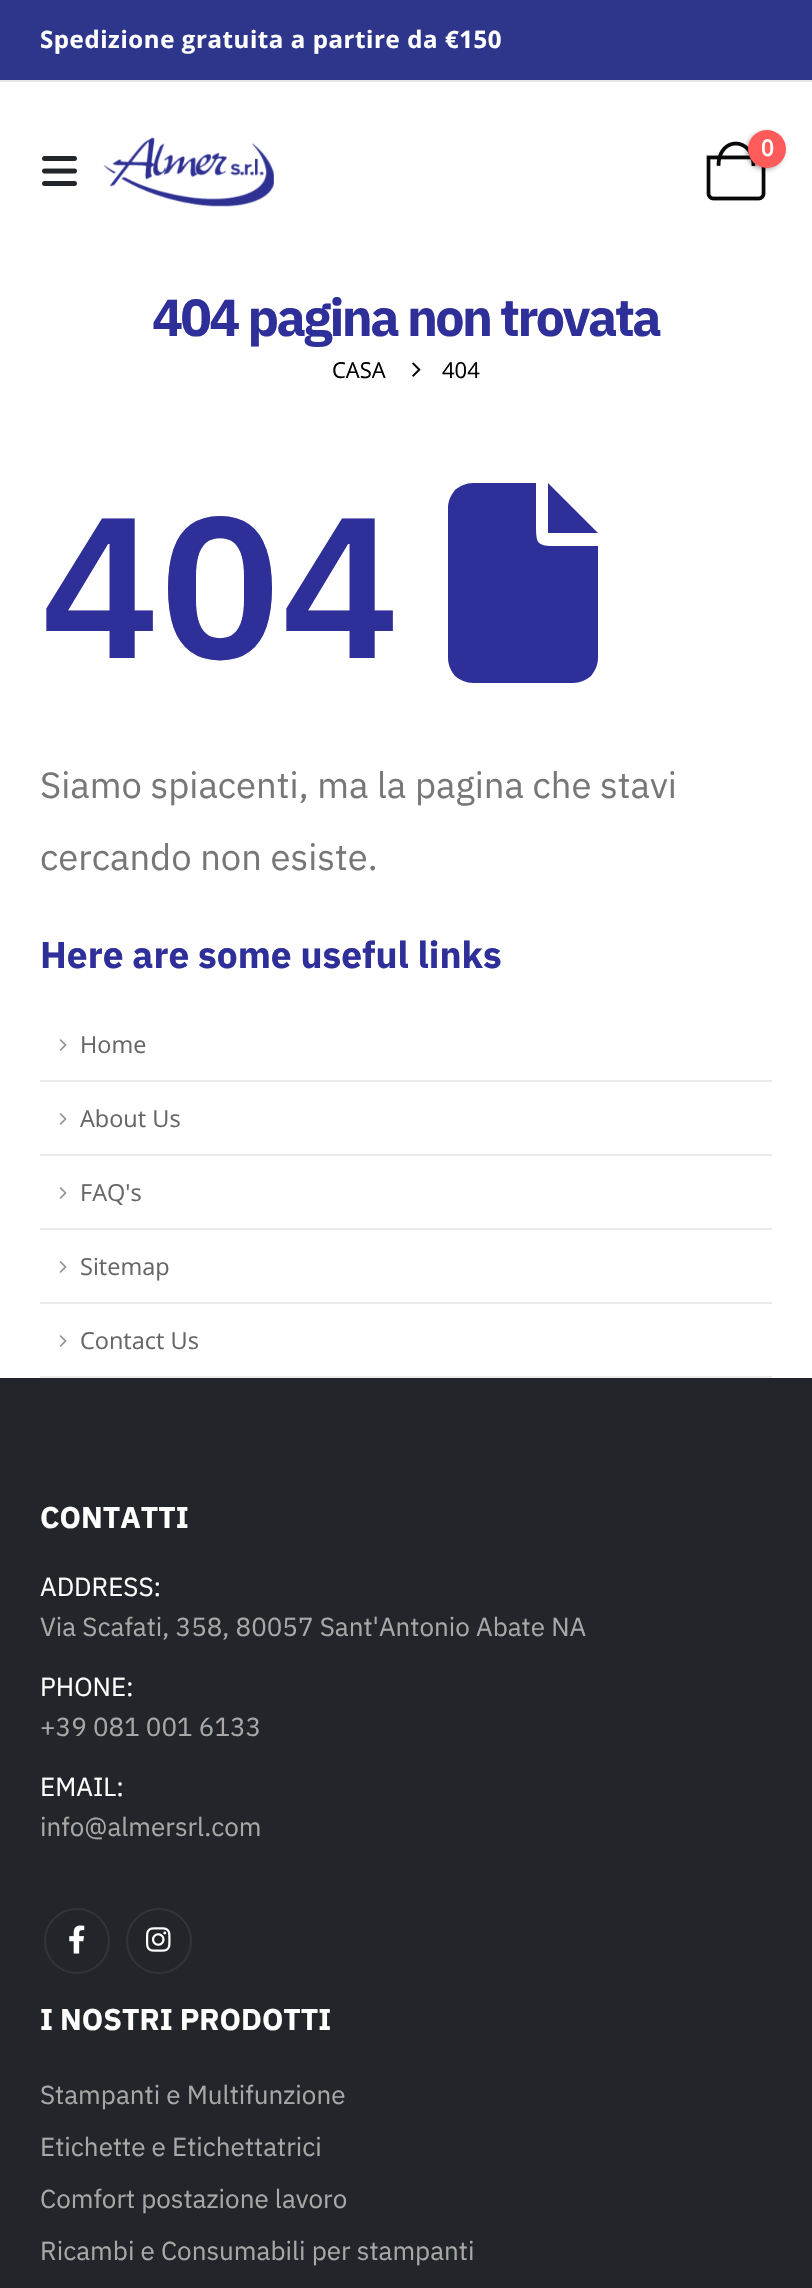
void draw(SkCanvas* canvas) {
    SkPaint paint;
    paint.setAntiAlias(true);
    auto face = [&](const char* family, int weight, float size, bool italic = false) {
        SkFontStyle style(weight, SkFontStyle::kNormal_Width,
            italic ? SkFontStyle::kItalic_Slant : SkFontStyle::kUpright_Slant);
        SkFont result(fontMgr->matchFamilyStyle(family, style), size);
        result.setSubpixel(true);
        return result;
    };
    auto write = [&](const char* s, float x, float y, const SkFont& font, SkColor color) {
        SkPaint ink(SkColor4f::FromColor(color));
        ink.setAntiAlias(true);
        canvas->drawString(s, x, y, font, ink);
    };
    auto writeSpaced = [&](const char* s, float x, float y, const SkFont& font, const SkPaint& ink, float letter, float word) {
        std::vector<SkGlyphID> glyphs(font.countText(s, strlen(s), SkTextEncoding::kUTF8));
        std::vector<float> xs(glyphs.size());
        font.textToGlyphs(s, strlen(s), SkTextEncoding::kUTF8, glyphs);
        font.getXPos(glyphs, xs, x);
        float extra = 0;
        for (size_t i = 0; i < glyphs.size(); i++) {
            xs[i] += extra;
            extra += letter + word * (glyphs[i] == font.unicharToGlyph(' '));
        }
        canvas->drawTextBlob(SkTextBlob::MakeFromPosHGlyphs(glyphs, xs, y, font), 0, 0, ink);
    };
    auto block = [&](float x, float y, float w, float h, SkColor color) {
        SkPaint ink(SkColor4f::FromColor(color));
        ink.setAntiAlias(true);
        canvas->drawRect(SkRect::MakeXYWH(x, y, w, h), ink);
    };
    auto paste = [&](const char* path, float x, float y, float w, float h) {
        auto image = SkImages::DeferredFromEncodedData(SkData::MakeFromFileName(path));
        canvas->drawImageRect(image, SkRect::MakeXYWH(x, y, w, h), SkSamplingOptions());
    };
    canvas->clear(SK_ColorWHITE);
    block(0, 0, 812, 80, SkColorSetRGB(46, 54, 140));
    block(0, 80, 812, 2, SkColorSetRGB(231, 231, 231));
    auto kFont1 = face("Open Sans", 700, 24);
    paint.setColor(SK_ColorWHITE);
    writeSpaced("Spedizione gratuita a partire da €150", 40, 48, kFont1, paint, 0.6f, 0);
    paste("pic1.png", 42, 156, 35, 30);
    paste("pic2.png", 103, 137, 171, 70);
    paste("pic3.png", 706, 141, 60, 60);
    paint.setColor(SkColorSetARGB(77, 0, 0, 0));
    paint.setMaskFilter(SkMaskFilter::MakeBlur(kNormal_SkBlurStyle, 2));
    canvas->drawRoundRect(SkRect::MakeXYWH(746, 132, 38, 38), 19, 19, paint);
    paint.setMaskFilter(nullptr);
    paint.setColor(SkColorSetRGB(255, 91, 91));
    canvas->drawCircle(767, 149, 19, paint);
    auto kFont2 = face("Open Sans", 600, 23);
    write("0", 761, 156, kFont2, SK_ColorWHITE);
    auto kFont3 = face("IBM Plex Sans", 700, 52);
    paint.setColor(SkColorSetRGB(46, 47, 152));
    writeSpaced("404 pagina non trovata", 152, 336, kFont3, paint, -2.6f, 0);
    auto kFont4 = face("Open Sans", 400, 22);
    write("CASA", 332, 378, kFont4, SK_ColorBLACK);
    paste("pic4.png", 412, 362, 9, 15);
    write("404", 442, 378, kFont4, SK_ColorBLACK);
    auto kFont5 = face("IBM Plex Sans", 600, 200);
    write("404", 40, 658, kFont5, SkColorSetRGB(46, 47, 152));
    canvas->drawPath(SkPathBuilder().moveTo(448, 508).cubicTo(448, 501, 451, 495, 455, 490).cubicTo(460, 486, 466, 483, 473, 483).lineTo(536, 483).lineTo(536, 525).cubicTo(536, 544, 537, 546, 556, 546).lineTo(598, 546).lineTo(598, 658).cubicTo(598, 665, 595, 671, 591, 676).cubicTo(586, 680, 580, 683, 573, 683).lineTo(473, 683).cubicTo(466, 683, 460, 680, 455, 676).cubicTo(451, 671, 448, 665, 448, 658).close().moveTo(598, 533).lineTo(548, 533).lineTo(548, 483).close().detach(), paint);
    auto kFont6 = face("IBM Plex Sans", 400, 36.4f);
    write("Siamo spiacenti, ma la pagina che stavi", 40, 798, kFont6, SkColorSetRGB(119, 119, 119));
    write("cercando non esiste.", 40, 870, kFont6, SkColorSetRGB(119, 119, 119));
    auto kFont7 = face("IBM Plex Sans", 700, 37.1f);
    write("Here are some useful links", 40, 968, kFont7, SkColorSetRGB(46, 47, 152));
    block(40, 1080, 732, 2, SkColorSetRGB(235, 235, 235));
    paste("pic5.png", 59, 1039, 8, 12);
    auto kFont8 = face("Open Sans", 400, 23.5f);
    write("Home", 80, 1053, kFont8, SkColorSetRGB(102, 102, 102));
    block(40, 1154, 732, 2, SkColorSetRGB(235, 235, 235));
    paste("pic5.png", 59, 1113, 8, 12);
    write("About Us", 80, 1127, kFont8, SkColorSetRGB(102, 102, 102));
    block(40, 1228, 732, 2, SkColorSetRGB(235, 235, 235));
    paste("pic5.png", 59, 1187, 8, 12);
    write("FAQ's", 80, 1201, kFont8, SkColorSetRGB(102, 102, 102));
    block(40, 1302, 732, 2, SkColorSetRGB(235, 235, 235));
    paste("pic5.png", 59, 1261, 8, 12);
    write("Sitemap", 80, 1275, kFont8, SkColorSetRGB(102, 102, 102));
    block(40, 1376, 732, 2, SkColorSetRGB(235, 235, 235));
    paste("pic5.png", 59, 1335, 8, 12);
    write("Contact Us", 80, 1349, kFont8, SkColorSetRGB(102, 102, 102));
    block(0, 1378, 812, 910, SkColorSetRGB(34, 37, 41));
    auto kFont9 = face("IBM Plex Sans", 700, 30);
    write("CONTATTI", 40, 1528, kFont9, SK_ColorWHITE);
    auto kFont10 = face("IBM Plex Sans", 400, 26);
    write("ADDRESS:", 40, 1596, kFont10, SK_ColorWHITE);
    write("Via Scafati, 358, 80057 Sant'Antonio Abate NA", 40, 1636, kFont10, SkColorSetRGB(168, 168, 168));
    write("PHONE:", 40, 1696, kFont10, SK_ColorWHITE);
    write("+39 081 001 6133", 40, 1736, kFont10, SkColorSetRGB(168, 168, 168));
    write("EMAIL:", 40, 1796, kFont10, SK_ColorWHITE);
    write("info@almersrl.com", 40, 1836, kFont10, SkColorSetRGB(168, 168, 168));
    paint.setStyle(SkPaint::kStroke_Style);
    paint.setStrokeWidth(2);
    paint.setColor(SkColorSetRGB(49, 52, 56));
    canvas->drawCircle(77, 1941, 32, paint);
    paste("pic6.png", 69, 1925, 16, 29);
    canvas->drawCircle(159, 1941, 32, paint);
    paste("pic7.png", 146, 1927, 25, 25);
    write("I NOSTRI PRODOTTI", 40, 2030, kFont9, SK_ColorWHITE);
    write("Stampanti e Multifunzione", 40, 2104, kFont10, SkColorSetRGB(168, 168, 168));
    write("Etichette e Etichettatrici", 40, 2156, kFont10, SkColorSetRGB(168, 168, 168));
    write("Comfort postazione lavoro", 40, 2208, kFont10, SkColorSetRGB(168, 168, 168));
    write("Ricambi e Consumabili per stampanti", 40, 2260, kFont10, SkColorSetRGB(168, 168, 168));
}
